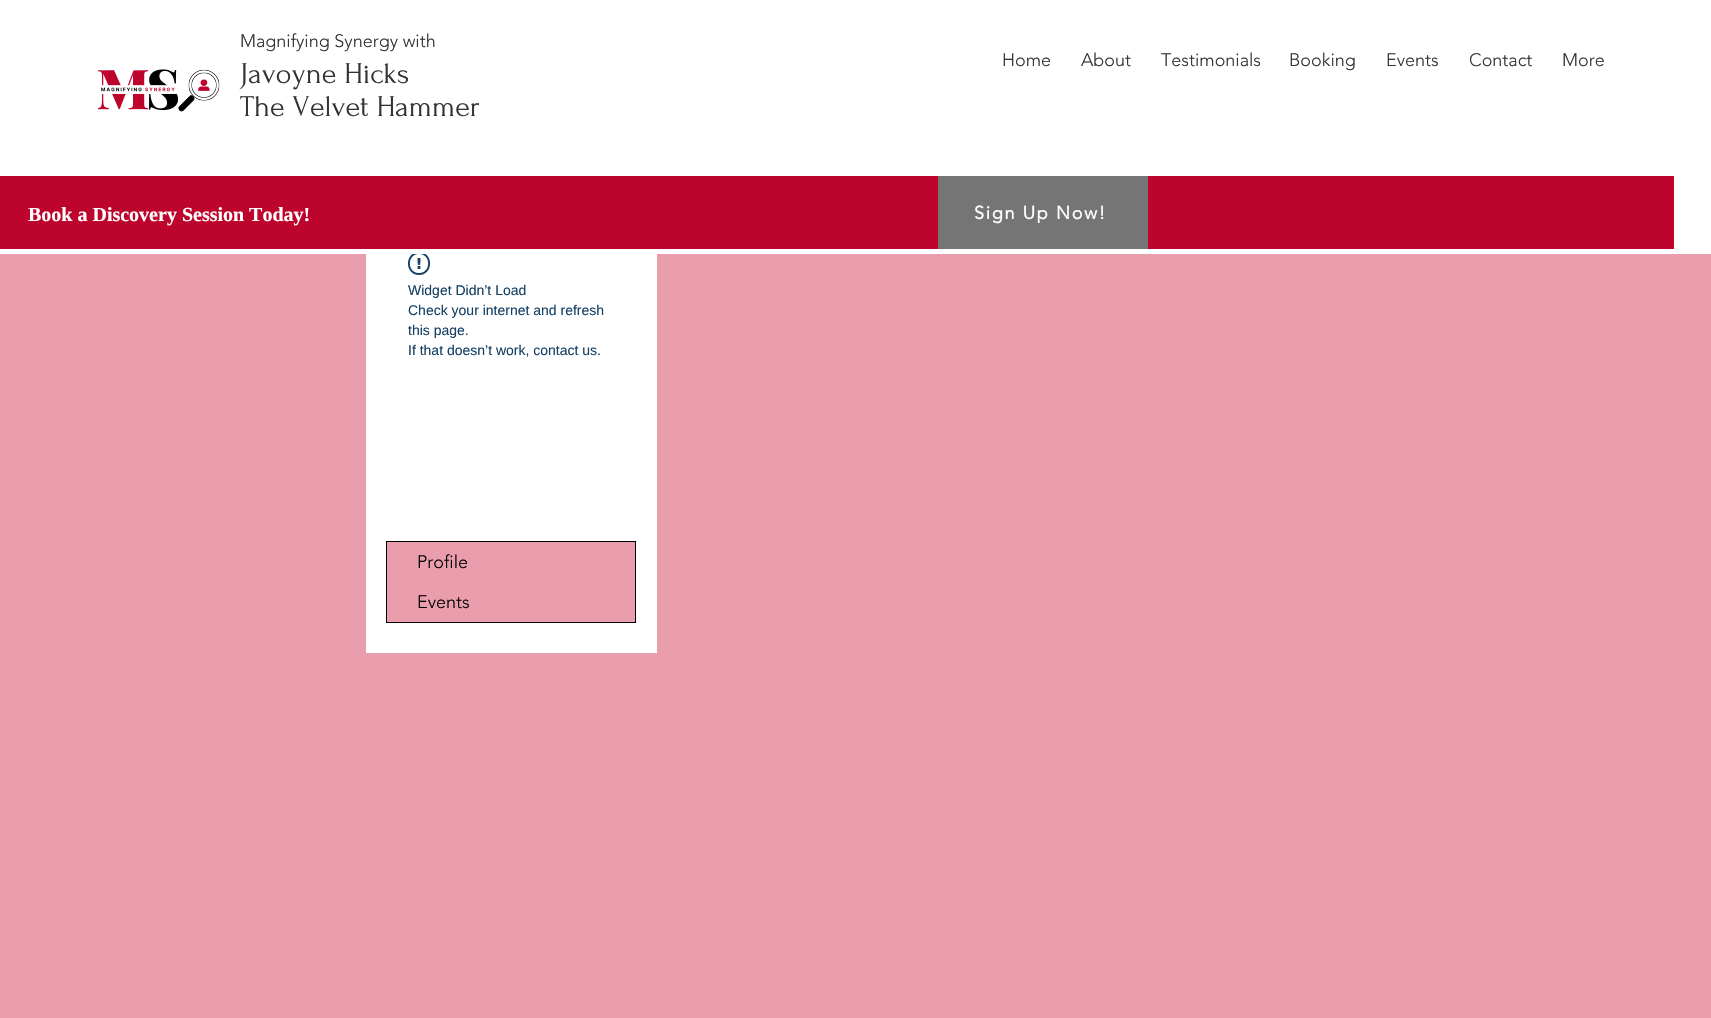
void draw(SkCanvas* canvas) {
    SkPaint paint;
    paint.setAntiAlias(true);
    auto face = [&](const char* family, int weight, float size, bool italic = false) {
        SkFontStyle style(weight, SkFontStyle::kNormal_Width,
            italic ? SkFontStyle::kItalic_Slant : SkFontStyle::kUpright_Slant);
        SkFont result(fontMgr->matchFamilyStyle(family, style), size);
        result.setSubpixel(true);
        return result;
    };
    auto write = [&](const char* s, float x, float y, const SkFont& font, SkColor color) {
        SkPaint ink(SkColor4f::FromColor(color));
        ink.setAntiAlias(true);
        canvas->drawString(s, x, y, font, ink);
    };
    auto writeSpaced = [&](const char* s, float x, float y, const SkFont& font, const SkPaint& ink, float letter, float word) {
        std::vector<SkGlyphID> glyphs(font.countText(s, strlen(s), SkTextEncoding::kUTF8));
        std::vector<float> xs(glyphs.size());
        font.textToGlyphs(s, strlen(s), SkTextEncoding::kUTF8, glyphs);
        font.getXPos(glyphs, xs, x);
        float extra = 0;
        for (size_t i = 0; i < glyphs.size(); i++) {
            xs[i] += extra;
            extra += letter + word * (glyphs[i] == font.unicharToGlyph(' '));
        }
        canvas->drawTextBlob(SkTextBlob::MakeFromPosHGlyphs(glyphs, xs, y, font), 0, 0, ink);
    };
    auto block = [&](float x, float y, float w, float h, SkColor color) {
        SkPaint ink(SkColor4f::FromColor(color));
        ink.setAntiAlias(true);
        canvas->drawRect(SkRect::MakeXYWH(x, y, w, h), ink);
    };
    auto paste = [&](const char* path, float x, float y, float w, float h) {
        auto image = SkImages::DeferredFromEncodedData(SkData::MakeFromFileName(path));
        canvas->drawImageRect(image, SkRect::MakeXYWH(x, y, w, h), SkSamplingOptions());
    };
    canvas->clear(SkColorSetRGB(233, 157, 173));
    block(0, 0, 1711, 254, SK_ColorWHITE);
    auto kFont1 = face("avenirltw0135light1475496", 300, 18);
    write("Magnifying Synergy with", 240, 47, kFont1, SkColorSetRGB(51, 51, 51));
    paste("pic1.png", 98, 69, 122, 43);
    auto kFont2 = face("Forum", 400, 30);
    write("Javoyne Hicks", 240, 83, kFont2, SkColorSetRGB(51, 51, 51));
    write("The Velvet Hammer", 240, 116, kFont2, SkColorSetRGB(51, 51, 51));
    write("Home", 1002, 66, kFont1, SkColorSetRGB(51, 51, 51));
    write("About", 1081, 66, kFont1, SkColorSetRGB(51, 51, 51));
    write("Testimonials", 1161, 66, kFont1, SkColorSetRGB(51, 51, 51));
    write("Booking", 1289, 66, kFont1, SkColorSetRGB(51, 51, 51));
    write("Events", 1386, 66, kFont1, SkColorSetRGB(51, 51, 51));
    write("Contact", 1469, 66, kFont1, SkColorSetRGB(51, 51, 51));
    write("More", 1562, 66, kFont1, SkColorSetRGB(51, 51, 51));
    block(0, 176, 1674, 73, SkColorSetRGB(188, 4, 44));
    auto kFont3 = face("Liberation Serif", 700, 20);
    write("Book a Discovery Session Today!", 28, 221, kFont3, SK_ColorWHITE);
    block(938, 176, 210, 73, SkColorSetRGB(117, 117, 117));
    auto kFont4 = face("avenirltw0135light1475496", 700, 18);
    paint.setColor(SK_ColorWHITE);
    writeSpaced("Sign Up Now!", 974, 219, kFont4, paint, 1.75f, 0);
    block(366, 254, 291, 399, SK_ColorWHITE);
    paste("pic2.png", 408, 254, 22, 21);
    auto kFont5 = face("Liberation Sans", 400, 14);
    write("Widget Didn’t Load", 408, 295, kFont5, SkColorSetRGB(23, 65, 101));
    write("Check your internet and refresh", 408, 315, kFont5, SkColorSetRGB(23, 65, 101));
    write("this page.", 408, 335, kFont5, SkColorSetRGB(23, 65, 101));
    write("If that doesn’t work, contact us.", 408, 355, kFont5, SkColorSetRGB(23, 65, 101));
    paint.setStyle(SkPaint::kStroke_Style);
    paint.setStrokeWidth(1);
    paint.setColor(SK_ColorBLACK);
    canvas->drawRect(SkRect::MakeXYWH(386.5f, 541.5f, 249, 81), paint);
    block(387, 542, 248, 80, SkColorSetRGB(233, 157, 173));
    write("Profile", 417, 568, kFont1, SK_ColorBLACK);
    write("Events", 417, 608, kFont1, SK_ColorBLACK);
}
